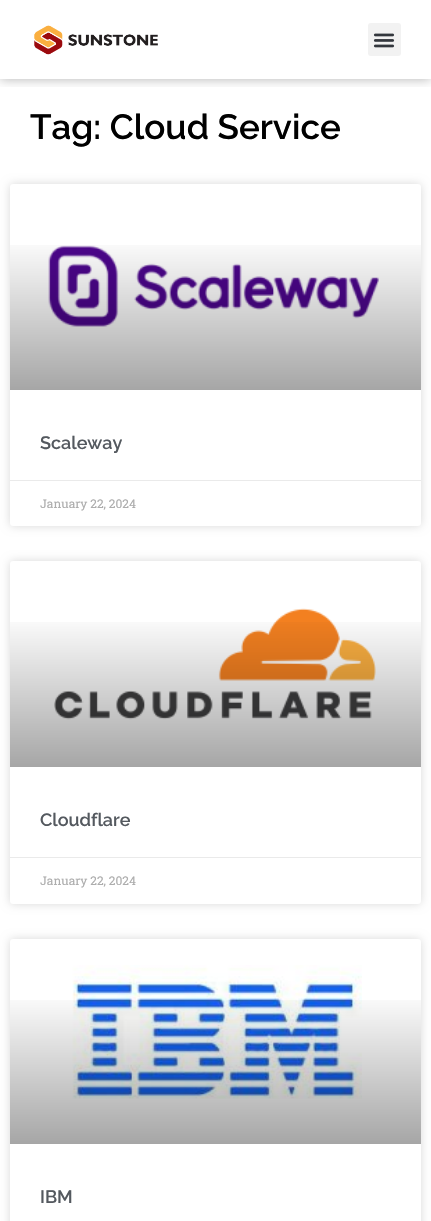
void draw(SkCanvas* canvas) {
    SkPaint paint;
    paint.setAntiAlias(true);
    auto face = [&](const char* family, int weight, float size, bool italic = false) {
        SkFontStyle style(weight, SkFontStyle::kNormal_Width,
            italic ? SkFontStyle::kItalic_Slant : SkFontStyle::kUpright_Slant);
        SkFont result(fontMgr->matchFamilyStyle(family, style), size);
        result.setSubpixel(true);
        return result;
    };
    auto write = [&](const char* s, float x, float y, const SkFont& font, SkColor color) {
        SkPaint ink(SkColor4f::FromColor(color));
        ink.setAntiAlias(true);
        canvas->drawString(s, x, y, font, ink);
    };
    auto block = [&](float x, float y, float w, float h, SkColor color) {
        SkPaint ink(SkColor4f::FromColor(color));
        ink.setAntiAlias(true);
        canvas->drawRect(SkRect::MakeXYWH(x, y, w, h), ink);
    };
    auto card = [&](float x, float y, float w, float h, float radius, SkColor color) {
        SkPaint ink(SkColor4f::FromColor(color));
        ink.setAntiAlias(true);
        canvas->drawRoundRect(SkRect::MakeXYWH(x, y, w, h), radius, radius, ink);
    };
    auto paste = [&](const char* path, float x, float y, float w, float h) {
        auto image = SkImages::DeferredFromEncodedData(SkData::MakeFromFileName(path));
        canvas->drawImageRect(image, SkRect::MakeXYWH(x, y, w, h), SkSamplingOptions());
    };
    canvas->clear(SK_ColorWHITE);
    canvas->save();
    canvas->clipRect(SkRect::MakeXYWH(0, 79, 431, 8));
    paint.setColor(SkColorSetARGB(77, 0, 0, 0));
    paint.setMaskFilter(SkMaskFilter::MakeBlur(kNormal_SkBlurStyle, 5.5f));
    canvas->drawRect(SkRect::MakeXYWH(0, 0, 431, 79), paint);
    paint.setMaskFilter(nullptr);
    canvas->restore();
    paste("pic1.png", 34, 25, 124, 30);
    card(368, 23, 33, 33, 3, SkColorSetRGB(242, 242, 242));
    paste("pic2.png", 373, 33, 22, 15);
    auto kFont1 = face("Raleway", 600, 35);
    write("Tag: Cloud Service", 30, 139, kFont1, SK_ColorBLACK);
    paint.setColor(SkColorSetARGB(38, 0, 0, 0));
    paint.setMaskFilter(SkMaskFilter::MakeBlur(kNormal_SkBlurStyle, 5));
    canvas->drawRoundRect(SkRect::MakeXYWH(10, 184, 411, 342), 3, 3, paint);
    paint.setMaskFilter(nullptr);
    card(10, 184, 411, 342, 3, SK_ColorWHITE);
    paste("pic3.png", 48, 245, 331, 82);
    {
        const SkColor colors[] = {SkColorSetARGB(89, 0, 0, 0), SkColorSetARGB(0, 0, 0, 0)};
        const float stops[] = {0, 0.75f};
        const SkPoint ends[] = {{216, 390}, {216, 184}};
        paint.setShader(SkGradientShader::MakeLinear(ends, colors, stops, 2, SkTileMode::kClamp));
        paint.setAlpha(255);
    }
    canvas->drawRect(SkRect::MakeXYWH(10, 245, 411, 145), paint);
    auto kFont2 = face("Raleway", 600, 18);
    write("Scaleway", 40, 449, kFont2, SkColorSetRGB(84, 89, 95));
    block(10, 480, 411, 1, SkColorSetRGB(234, 234, 234));
    auto kFont3 = face("Roboto Slab", 400, 12);
    write("January 22, 2024", 40, 508, kFont3, SkColorSetRGB(173, 173, 173));
    paint.setShader(nullptr);
    paint.setColor(SkColorSetARGB(38, 0, 0, 0));
    paint.setMaskFilter(SkMaskFilter::MakeBlur(kNormal_SkBlurStyle, 5));
    canvas->drawRoundRect(SkRect::MakeXYWH(10, 561, 411, 343), 3, 3, paint);
    paint.setMaskFilter(nullptr);
    card(10, 561, 411, 343, 3, SK_ColorWHITE);
    paste("pic4.png", 54, 608, 322, 112);
    {
        const SkColor colors[] = {SkColorSetARGB(89, 0, 0, 0), SkColorSetARGB(0, 0, 0, 0)};
        const float stops[] = {0, 0.75f};
        const SkPoint ends[] = {{216, 767}, {216, 561}};
        paint.setShader(SkGradientShader::MakeLinear(ends, colors, stops, 2, SkTileMode::kClamp));
        paint.setAlpha(255);
    }
    canvas->drawRect(SkRect::MakeXYWH(10, 622, 411, 145), paint);
    write("Cloudflare", 40, 826, kFont2, SkColorSetRGB(84, 89, 95));
    block(10, 857, 411, 1, SkColorSetRGB(234, 234, 234));
    write("January 22, 2024", 40, 885, kFont3, SkColorSetRGB(173, 173, 173));
    paint.setShader(nullptr);
    paint.setColor(SkColorSetARGB(38, 0, 0, 0));
    paint.setMaskFilter(SkMaskFilter::MakeBlur(kNormal_SkBlurStyle, 5));
    canvas->drawRoundRect(SkRect::MakeXYWH(10, 939, 411, 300), 3, 3, paint);
    paint.setMaskFilter(nullptr);
    card(10, 939, 411, 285, 3, SK_ColorWHITE);
    paste("pic5.png", 72, 965, 290, 134);
    {
        const SkColor colors[] = {SkColorSetARGB(89, 0, 0, 0), SkColorSetARGB(0, 0, 0, 0)};
        const float stops[] = {0, 0.75f};
        const SkPoint ends[] = {{216, 1144}, {216, 939}};
        paint.setShader(SkGradientShader::MakeLinear(ends, colors, stops, 2, SkTileMode::kClamp));
        paint.setAlpha(255);
    }
    canvas->drawRect(SkRect::MakeXYWH(10, 1000, 411, 144), paint);
    write("IBM", 40, 1203, kFont2, SkColorSetRGB(84, 89, 95));
}
